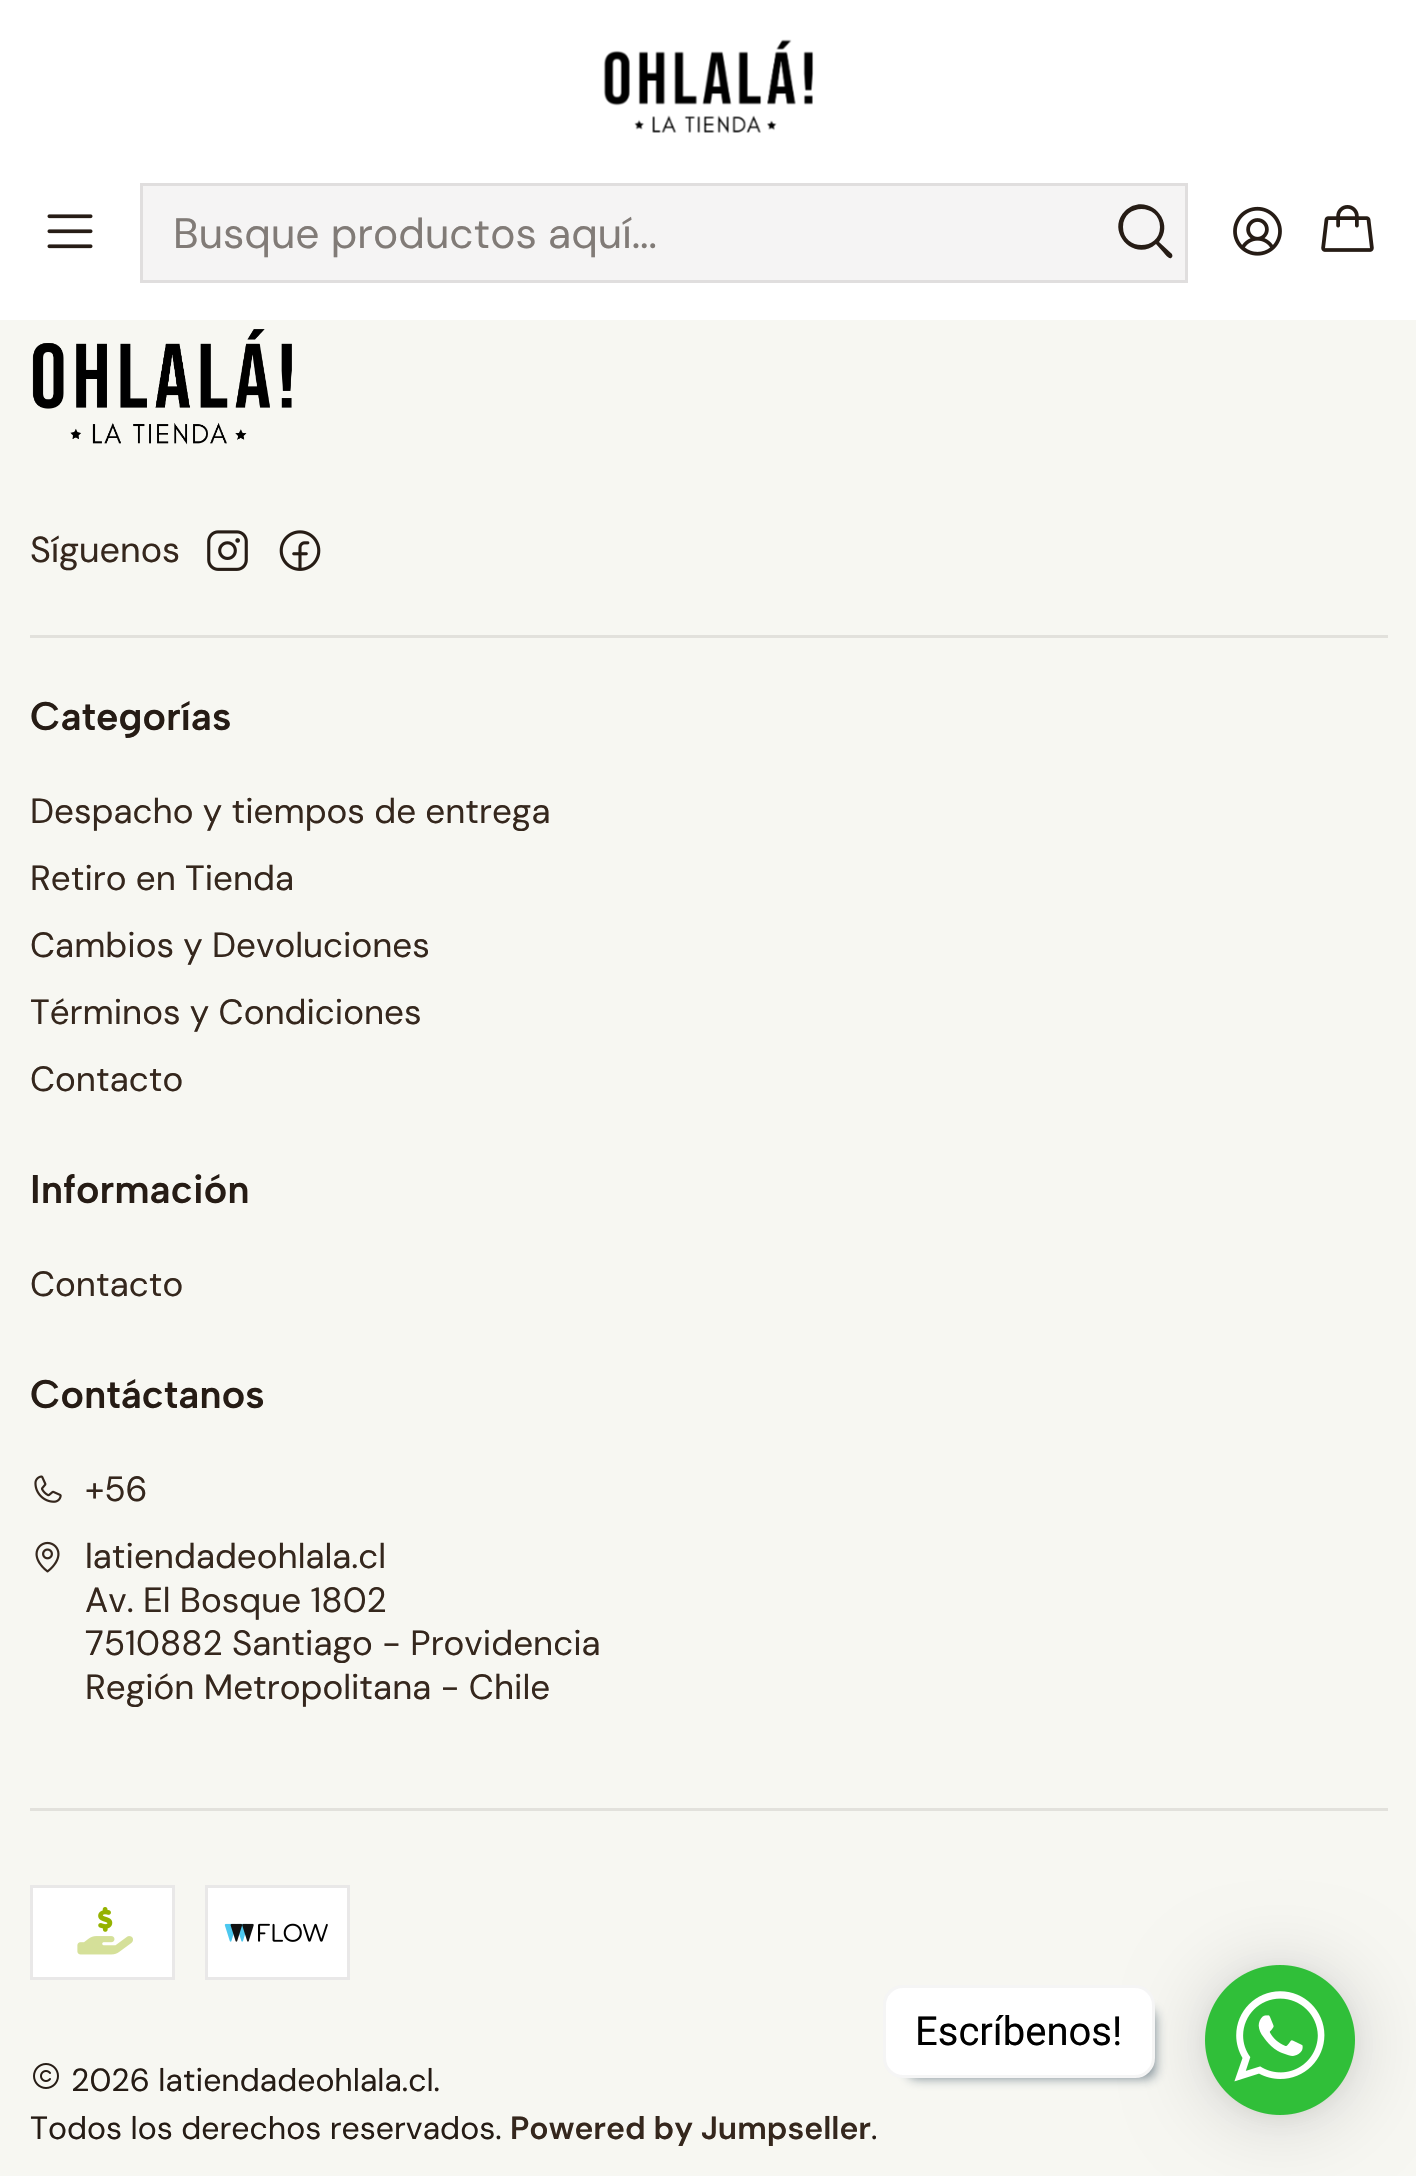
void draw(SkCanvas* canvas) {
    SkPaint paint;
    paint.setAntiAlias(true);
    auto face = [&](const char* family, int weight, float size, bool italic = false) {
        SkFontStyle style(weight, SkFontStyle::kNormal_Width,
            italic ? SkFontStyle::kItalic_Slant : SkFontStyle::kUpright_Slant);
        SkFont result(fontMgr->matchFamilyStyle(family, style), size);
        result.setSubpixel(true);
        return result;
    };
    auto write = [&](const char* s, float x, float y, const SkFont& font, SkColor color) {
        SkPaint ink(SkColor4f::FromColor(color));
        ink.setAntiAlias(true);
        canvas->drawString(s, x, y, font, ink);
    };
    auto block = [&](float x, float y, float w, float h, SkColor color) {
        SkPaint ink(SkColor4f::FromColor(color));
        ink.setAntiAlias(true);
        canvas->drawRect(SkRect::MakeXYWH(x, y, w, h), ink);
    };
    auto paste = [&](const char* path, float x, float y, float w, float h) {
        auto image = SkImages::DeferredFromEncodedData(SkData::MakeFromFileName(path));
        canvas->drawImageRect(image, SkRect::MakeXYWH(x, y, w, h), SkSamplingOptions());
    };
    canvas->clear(SkColorSetRGB(247, 247, 242));
    block(0, 0, 1416, 320, SK_ColorWHITE);
    paste("pic1.png", 603, 39, 211, 95);
    paste("pic2.png", 47, 214, 46, 35);
    paint.setColor(SkColorSetRGB(245, 244, 244));
    canvas->drawRect(SkRect::MakeXYWH(141.5f, 184.5f, 1045, 97), paint);
    paint.setStyle(SkPaint::kStroke_Style);
    paint.setStrokeWidth(3);
    paint.setColor(SkColorSetRGB(224, 222, 222));
    canvas->drawRect(SkRect::MakeXYWH(141.5f, 184.5f, 1045, 97), paint);
    auto kFont1 = face("DM Sans", 400, 42.5f);
    write("Busque productos aquí...", 173, 248, kFont1, SkColorSetRGB(129, 123, 119));
    paint.setStyle(SkPaint::kFill_Style);
    paint.setColor(SkColorSetRGB(38, 28, 21));
    canvas->drawPath(SkPathBuilder().moveTo(1172, 254).lineTo(1159, 242).cubicTo(1177, 220, 1146, 191, 1125, 211).cubicTo(1105, 231, 1134, 263, 1156, 244).lineTo(1164, 253).cubicTo(1165, 254, 1170, 261, 1172, 257).cubicTo(1173, 256, 1172, 255, 1172, 254).close().moveTo(1123, 227).cubicTo(1123, 203, 1160, 203, 1160, 227).cubicTo(1160, 251, 1123, 251, 1123, 227).close().detach(), paint);
    paste("pic3.png", 1233, 206, 49, 50);
    paste("pic4.png", 1321, 205, 53, 47);
    paste("pic5.png", 32, 329, 260, 116);
    auto kFont2 = face("DM Sans", 400, 36);
    write("Síguenos", 30, 562, kFont2, SkColorSetRGB(53, 39, 29));
    paste("pic6.png", 207, 530, 41, 41);
    paste("pic7.png", 279, 530, 42, 41);
    block(30, 635, 1358, 3, SkColorSetRGB(226, 225, 220));
    auto kFont3 = face("Albert Sans", 600, 40);
    write("Categorías", 30, 730, kFont3, SkColorSetRGB(38, 28, 21));
    auto kFont4 = face("DM Sans", 400, 35);
    write("Despacho y tiempos de entrega", 30, 823, kFont4, SkColorSetRGB(53, 39, 29));
    write("Retiro en Tienda", 30, 890, kFont4, SkColorSetRGB(53, 39, 29));
    write("Cambios y Devoluciones", 30, 957, kFont4, SkColorSetRGB(53, 39, 29));
    write("Términos y Condiciones", 30, 1024, kFont4, SkColorSetRGB(53, 39, 29));
    write("Contacto", 30, 1091, kFont4, SkColorSetRGB(53, 39, 29));
    write("Información", 30, 1203, kFont3, SkColorSetRGB(38, 28, 21));
    write("Contacto", 30, 1296, kFont4, SkColorSetRGB(53, 39, 29));
    write("Contáctanos", 30, 1408, kFont3, SkColorSetRGB(38, 28, 21));
    paste("pic8.png", 34, 1475, 28, 28);
    write("+56", 85, 1501, kFont4, SkColorSetRGB(53, 39, 29));
    paste("pic9.png", 35, 1541, 25, 32);
    write("latiendadeohlala.cl", 85, 1568, kFont4, SkColorSetRGB(53, 39, 29));
    write("Av. El Bosque 1802", 85, 1612, kFont4, SkColorSetRGB(53, 39, 29));
    write("7510882 Santiago - Providencia", 85, 1655, kFont4, SkColorSetRGB(53, 39, 29));
    write("Región Metropolitana - Chile", 85, 1699, kFont4, SkColorSetRGB(53, 39, 29));
    block(30, 1808, 1358, 3, SkColorSetRGB(226, 225, 220));
    paint.setColor(SK_ColorWHITE);
    canvas->drawRect(SkRect::MakeXYWH(31.5f, 1886.5f, 142, 92), paint);
    paint.setStyle(SkPaint::kStroke_Style);
    paint.setColor(SkColorSetRGB(233, 232, 232));
    canvas->drawRect(SkRect::MakeXYWH(31.5f, 1886.5f, 142, 92), paint);
    paste("pic10.png", 77, 1907, 56, 48);
    paint.setStyle(SkPaint::kFill_Style);
    paint.setColor(SK_ColorWHITE);
    canvas->drawRect(SkRect::MakeXYWH(206.5f, 1886.5f, 142, 92), paint);
    paint.setStyle(SkPaint::kStroke_Style);
    paint.setColor(SkColorSetRGB(233, 232, 232));
    canvas->drawRect(SkRect::MakeXYWH(206.5f, 1886.5f, 142, 92), paint);
    paste("pic11.png", 224, 1923, 104, 19);
    paste("pic12.png", 33, 2063, 26, 26);
    auto kFont5 = face("DM Sans", 400, 32);
    write("2026 latiendadeohlala.cl.", 71, 2091, kFont5, SkColorSetRGB(38, 28, 21));
    write("Todos los derechos reservados.", 30, 2139, kFont5, SkColorSetRGB(38, 28, 21));
    auto kFont6 = face("DM Sans", 600, 32);
    write("Powered by Jumpseller", 510, 2139, kFont6, SkColorSetRGB(53, 39, 29));
    write(".", 871, 2139, kFont5, SkColorSetRGB(38, 28, 21));
    paint.setStyle(SkPaint::kFill_Style);
    paint.setColor(SkColorSetARGB(153, 34, 60, 80));
    paint.setMaskFilter(SkMaskFilter::MakeBlur(kNormal_SkBlurStyle, 6));
    canvas->drawRoundRect(SkRect::MakeXYWH(908, 2010, 247, 68), 8, 8, paint);
    paint.setMaskFilter(nullptr);
    paint.setColor(SkColorSetARGB(41, 0, 0, 0));
    paint.setMaskFilter(SkMaskFilter::MakeBlur(kNormal_SkBlurStyle, 40));
    canvas->drawRoundRect(SkRect::MakeXYWH(1205, 1970, 150, 150), 75, 75, paint);
    paint.setMaskFilter(nullptr);
    paint.setColor(SK_ColorWHITE);
    canvas->drawRoundRect(SkRect::MakeXYWH(884.5f, 1986.5f, 269, 90), 18.5f, 18.5f, paint);
    paint.setStyle(SkPaint::kStroke_Style);
    paint.setColor(SkColorSetRGB(245, 245, 245));
    canvas->drawRoundRect(SkRect::MakeXYWH(884.5f, 1986.5f, 269, 90), 18.5f, 18.5f, paint);
    auto kFont7 = face("Roboto", 400, 40);
    write("Escríbenos!", 915, 2045, kFont7, SK_ColorBLACK);
    paint.setStyle(SkPaint::kFill_Style);
    paint.setColor(SkColorSetARGB(15, 0, 0, 0));
    paint.setMaskFilter(SkMaskFilter::MakeBlur(kNormal_SkBlurStyle, 7.5f));
    canvas->drawRoundRect(SkRect::MakeXYWH(1205, 1968, 150, 150), 75, 75, paint);
    paint.setMaskFilter(nullptr);
    paste("pic13.png", 1205, 1965, 150, 150);
}
